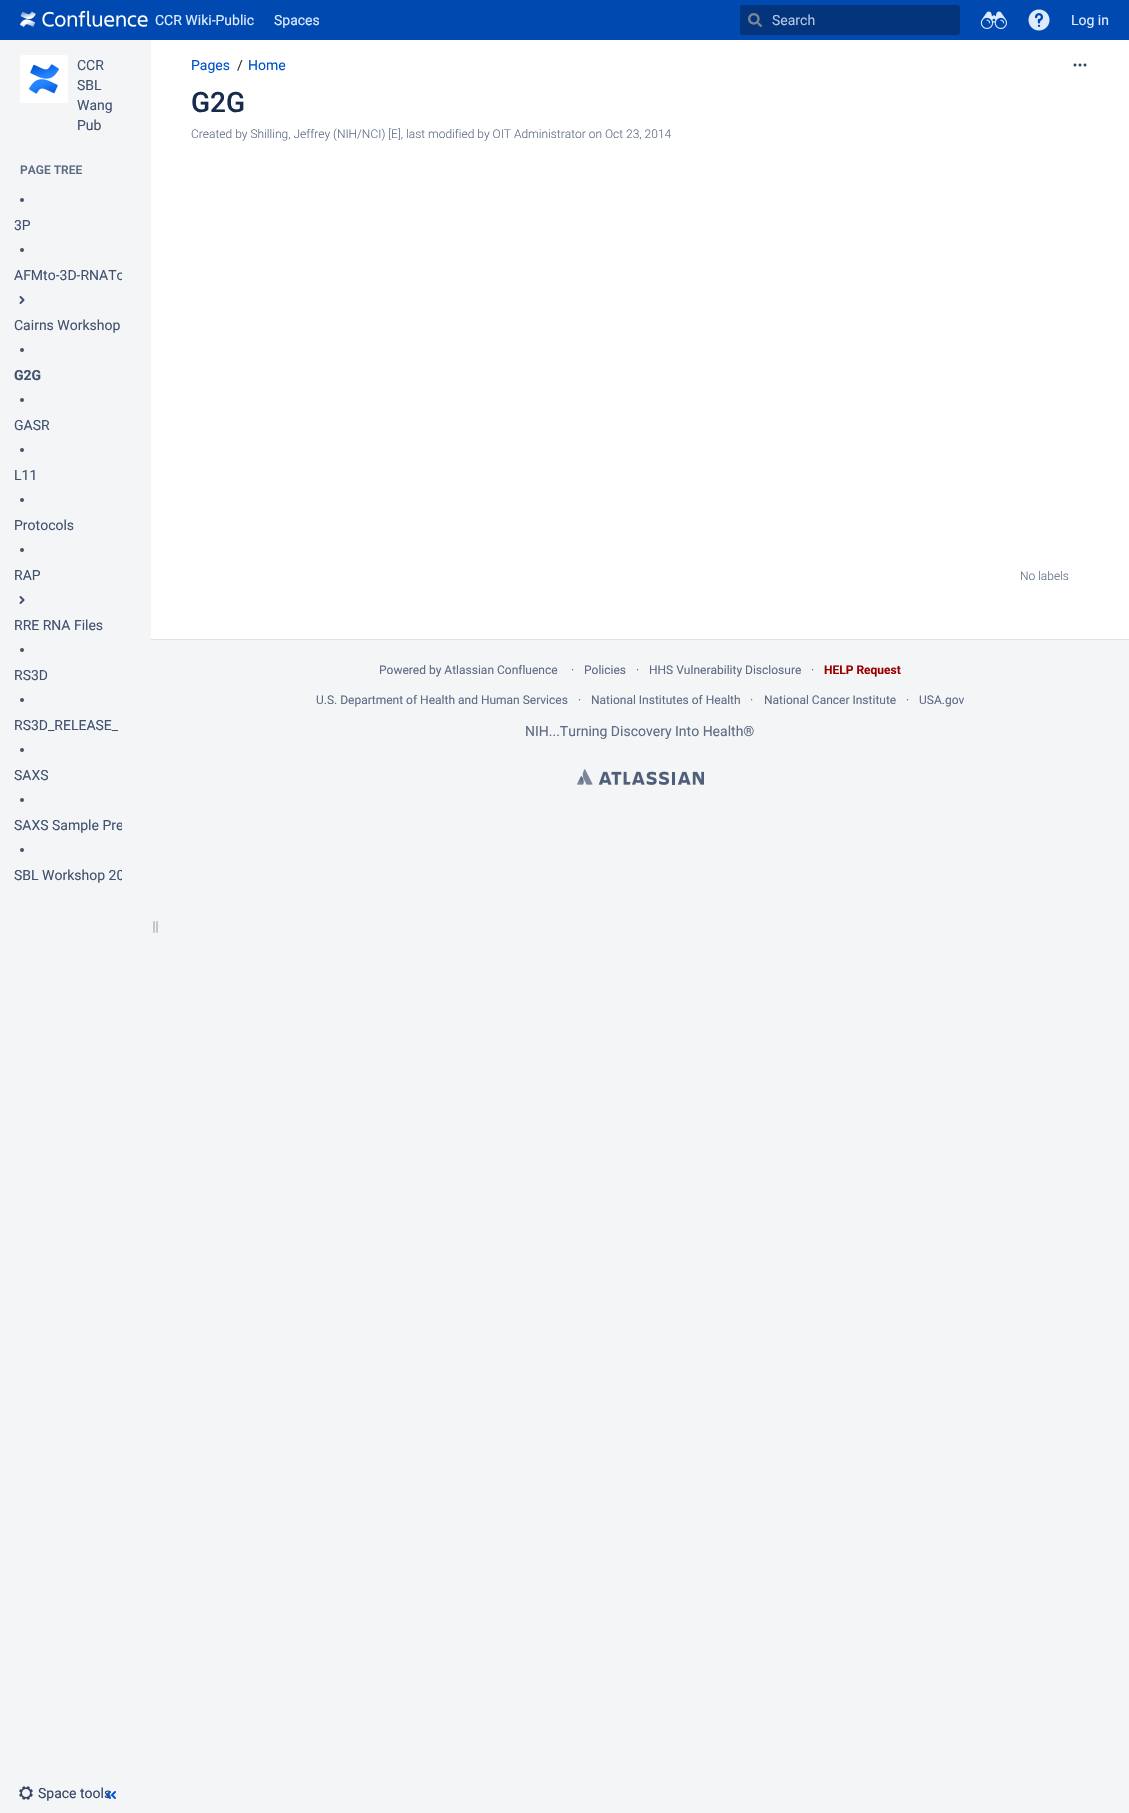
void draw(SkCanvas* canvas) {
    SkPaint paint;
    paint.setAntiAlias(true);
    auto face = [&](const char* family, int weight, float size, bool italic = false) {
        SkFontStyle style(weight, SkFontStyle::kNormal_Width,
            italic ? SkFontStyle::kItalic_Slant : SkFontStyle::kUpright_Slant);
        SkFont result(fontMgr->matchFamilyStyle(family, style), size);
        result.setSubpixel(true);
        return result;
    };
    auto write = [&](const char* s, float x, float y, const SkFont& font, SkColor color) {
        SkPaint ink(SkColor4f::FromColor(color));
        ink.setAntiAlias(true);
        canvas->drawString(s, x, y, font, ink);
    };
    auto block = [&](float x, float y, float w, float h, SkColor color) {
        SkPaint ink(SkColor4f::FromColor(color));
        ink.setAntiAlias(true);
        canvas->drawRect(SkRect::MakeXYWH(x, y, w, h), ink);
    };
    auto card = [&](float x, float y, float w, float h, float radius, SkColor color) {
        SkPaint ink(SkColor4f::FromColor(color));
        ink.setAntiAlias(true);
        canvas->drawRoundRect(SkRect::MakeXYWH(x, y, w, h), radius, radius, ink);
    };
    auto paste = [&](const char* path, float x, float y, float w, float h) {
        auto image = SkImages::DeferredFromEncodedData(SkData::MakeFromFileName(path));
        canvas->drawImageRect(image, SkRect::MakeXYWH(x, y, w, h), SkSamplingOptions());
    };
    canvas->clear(SkColorSetRGB(244, 245, 247));
    block(0, 0, 1129, 40, SkColorSetRGB(0, 73, 176));
    paste("pic1.png", 20, 10, 128, 17);
    auto kFont1 = face("Roboto", 400, 14);
    write("CCR Wiki-Public", 155, 25, kFont1, SkColorSetRGB(222, 235, 255));
    write("Spaces", 274, 25, kFont1, SkColorSetRGB(222, 235, 255));
    card(740, 5, 220, 30, 3, SkColorSetRGB(4, 52, 123));
    paste("pic2.png", 748, 13, 14, 14);
    write("Search", 772, 25, kFont1, SkColorSetRGB(178, 198, 229));
    paste("pic3.png", 980, 11, 27, 18);
    paste("pic4.png", 1028, 9, 22, 22);
    write("Log in", 1071, 25, kFont1, SkColorSetRGB(222, 235, 255));
    card(20, 55, 48, 48, 3, SK_ColorWHITE);
    paste("pic5.png", 29, 64, 30, 30);
    write("CCR", 77, 70, kFont1, SkColorSetRGB(66, 82, 110));
    write("SBL", 77, 90, kFont1, SkColorSetRGB(66, 82, 110));
    write("Wang", 77, 110, kFont1, SkColorSetRGB(66, 82, 110));
    write("Pub", 77, 130, kFont1, SkColorSetRGB(66, 82, 110));
    auto kFont2 = face("Roboto", 600, 12);
    write("PAGE TREE", 20, 174, kFont2, SkColorSetRGB(94, 108, 132));
    paint.setColor(SkColorSetRGB(66, 82, 110));
    canvas->drawCircle(22, 200, 2, paint);
    write("3P", 14, 230, kFont1, SkColorSetRGB(66, 82, 110));
    canvas->drawCircle(22, 250, 2, paint);
    canvas->save();
    canvas->clipRect(SkRect::MakeXYWH(14, 265, 108, 20));
    write("AFMto-3D-RNATo", 14, 280, kFont1, SkColorSetRGB(66, 82, 110));
    canvas->restore();
    paste("pic6.png", 19, 296, 6, 8);
    write("Cairns Workshop", 14, 330, kFont1, SkColorSetRGB(66, 82, 110));
    canvas->drawCircle(22, 350, 2, paint);
    auto kFont3 = face("Roboto", 700, 14);
    write("G2G", 14, 380, kFont3, SkColorSetRGB(66, 82, 110));
    canvas->drawCircle(22, 400, 2, paint);
    write("GASR", 14, 430, kFont1, SkColorSetRGB(66, 82, 110));
    canvas->drawCircle(22, 450, 2, paint);
    write("L11", 14, 480, kFont1, SkColorSetRGB(66, 82, 110));
    canvas->drawCircle(22, 500, 2, paint);
    write("Protocols", 14, 530, kFont1, SkColorSetRGB(66, 82, 110));
    canvas->drawCircle(22, 550, 2, paint);
    write("RAP", 14, 580, kFont1, SkColorSetRGB(66, 82, 110));
    paste("pic6.png", 19, 596, 6, 8);
    write("RRE RNA Files", 14, 630, kFont1, SkColorSetRGB(66, 82, 110));
    canvas->drawCircle(22, 650, 2, paint);
    write("RS3D", 14, 680, kFont1, SkColorSetRGB(66, 82, 110));
    canvas->drawCircle(22, 700, 2, paint);
    write("RS3D_RELEASE_", 14, 730, kFont1, SkColorSetRGB(66, 82, 110));
    canvas->drawCircle(22, 750, 2, paint);
    write("SAXS", 14, 780, kFont1, SkColorSetRGB(66, 82, 110));
    canvas->drawCircle(22, 800, 2, paint);
    canvas->save();
    canvas->clipRect(SkRect::MakeXYWH(14, 815, 108, 20));
    write("SAXS Sample Pre", 14, 830, kFont1, SkColorSetRGB(66, 82, 110));
    canvas->restore();
    canvas->drawCircle(22, 850, 2, paint);
    canvas->save();
    canvas->clipRect(SkRect::MakeXYWH(14, 865, 108, 20));
    write("SBL Workshop 20", 14, 880, kFont1, SkColorSetRGB(66, 82, 110));
    canvas->restore();
    paste("pic7.png", 153, 921, 5, 12);
    paste("pic8.png", 19, 1786, 14, 14);
    write("Space tools", 38, 1798, kFont1, SkColorSetRGB(52, 69, 99));
    paste("pic9.png", 106, 1791, 10, 8);
    block(151, 40, 978, 599, SK_ColorWHITE);
    block(151, 639, 978, 1, SkColorSetRGB(223, 225, 230));
    write("Pages", 191, 70, kFont1, SkColorSetRGB(0, 82, 204));
    write("/", 237, 70, kFont1, SkColorSetRGB(51, 51, 51));
    write("Home", 248, 70, kFont1, SkColorSetRGB(0, 82, 204));
    auto kFont4 = face("Roboto", 500, 28);
    write("G2G", 191, 112, kFont4, SkColorSetRGB(23, 43, 77));
    paste("pic10.png", 1073, 63, 14, 4);
    auto kFont5 = face("Roboto", 300, 12);
    write("Created by Shilling, Jeffrey (NIH/NCI) [E], last modified by OIT Administrator on Oct 23, 2014", 191, 138, kFont5, SkColorSetRGB(94, 108, 132));
    write("No labels", 1020, 580, kFont5, SkColorSetRGB(94, 108, 132));
    auto kFont6 = face("Roboto", 400, 12);
    write("Powered by Atlassian Confluence", 379, 674, kFont6, SkColorSetRGB(94, 108, 132));
    write("·", 571, 674, kFont6, SkColorSetRGB(94, 108, 132));
    write("Policies", 584, 674, kFont6, SkColorSetRGB(94, 108, 132));
    write("·", 636, 674, kFont6, SkColorSetRGB(94, 108, 132));
    write("HHS Vulnerability Disclosure", 649, 674, kFont6, SkColorSetRGB(94, 108, 132));
    write("·", 811, 674, kFont6, SkColorSetRGB(94, 108, 132));
    auto kFont7 = face("Roboto", 700, 12);
    write("HELP Request", 824, 674, kFont7, SkColorSetRGB(153, 0, 0));
    write("U.S. Department of Health and Human Services", 316, 704, kFont6, SkColorSetRGB(94, 108, 132));
    write("·", 578, 704, kFont6, SkColorSetRGB(94, 108, 132));
    write("National Institutes of Health", 591, 704, kFont6, SkColorSetRGB(94, 108, 132));
    write("·", 750, 704, kFont6, SkColorSetRGB(94, 108, 132));
    write("National Cancer Institute", 764, 704, kFont6, SkColorSetRGB(94, 108, 132));
    write("·", 906, 704, kFont6, SkColorSetRGB(94, 108, 132));
    write("USA.gov", 919, 704, kFont6, SkColorSetRGB(94, 108, 132));
    write("NIH...Turning Discovery Into Health®", 525, 736, kFont1, SkColorSetRGB(94, 108, 132));
    paste("pic11.png", 577, 769, 127, 16);
}
